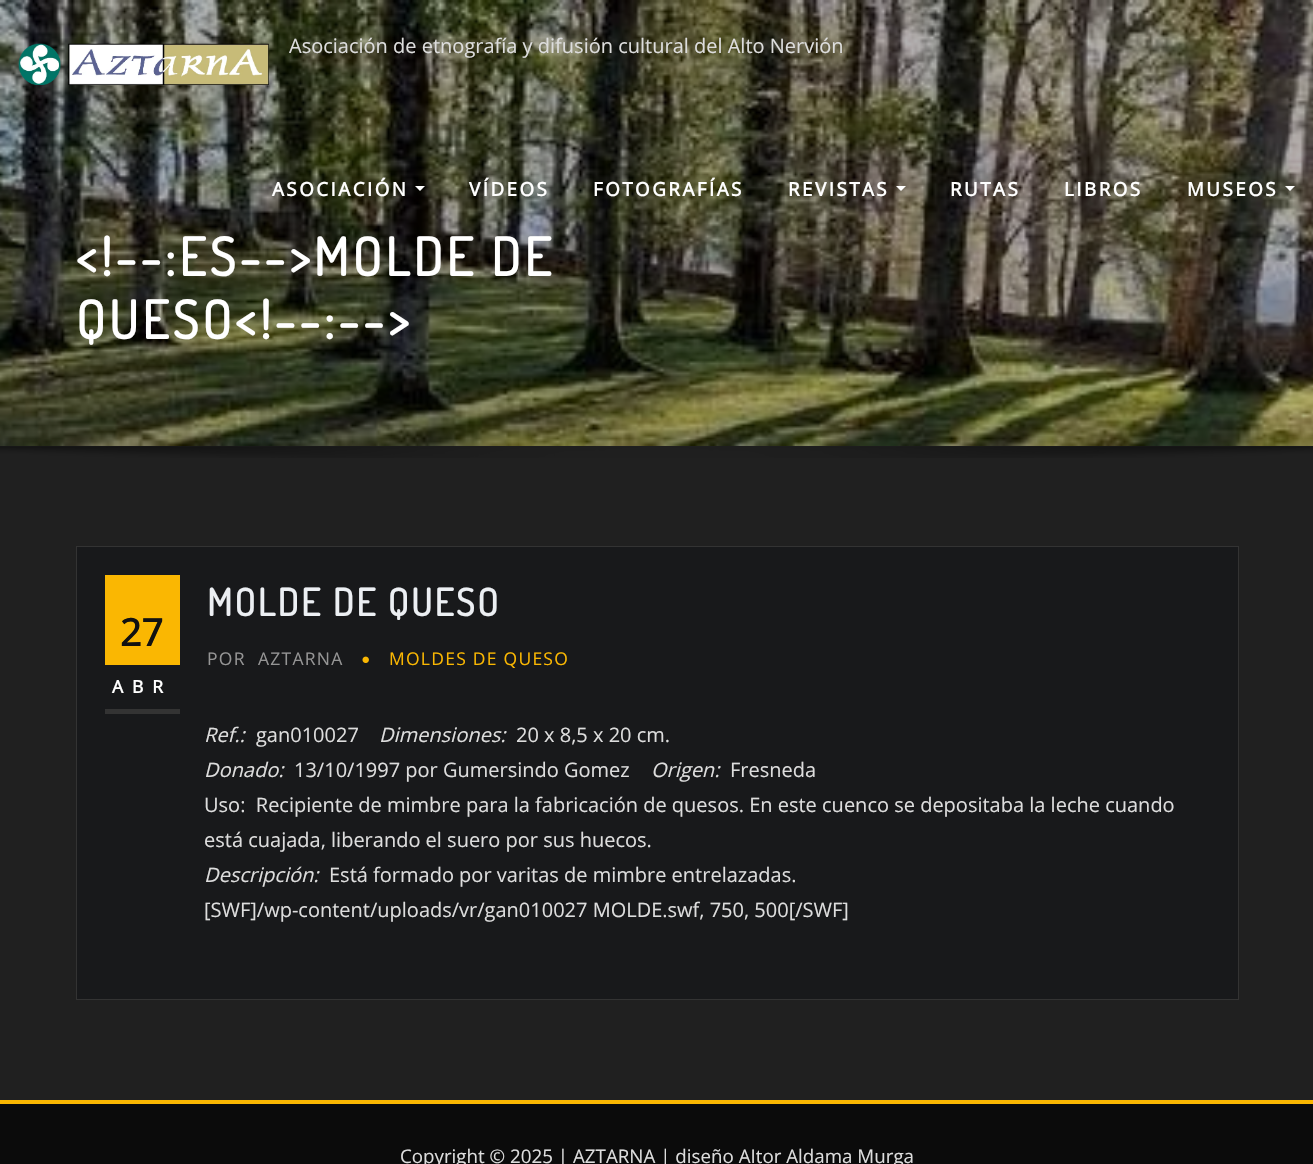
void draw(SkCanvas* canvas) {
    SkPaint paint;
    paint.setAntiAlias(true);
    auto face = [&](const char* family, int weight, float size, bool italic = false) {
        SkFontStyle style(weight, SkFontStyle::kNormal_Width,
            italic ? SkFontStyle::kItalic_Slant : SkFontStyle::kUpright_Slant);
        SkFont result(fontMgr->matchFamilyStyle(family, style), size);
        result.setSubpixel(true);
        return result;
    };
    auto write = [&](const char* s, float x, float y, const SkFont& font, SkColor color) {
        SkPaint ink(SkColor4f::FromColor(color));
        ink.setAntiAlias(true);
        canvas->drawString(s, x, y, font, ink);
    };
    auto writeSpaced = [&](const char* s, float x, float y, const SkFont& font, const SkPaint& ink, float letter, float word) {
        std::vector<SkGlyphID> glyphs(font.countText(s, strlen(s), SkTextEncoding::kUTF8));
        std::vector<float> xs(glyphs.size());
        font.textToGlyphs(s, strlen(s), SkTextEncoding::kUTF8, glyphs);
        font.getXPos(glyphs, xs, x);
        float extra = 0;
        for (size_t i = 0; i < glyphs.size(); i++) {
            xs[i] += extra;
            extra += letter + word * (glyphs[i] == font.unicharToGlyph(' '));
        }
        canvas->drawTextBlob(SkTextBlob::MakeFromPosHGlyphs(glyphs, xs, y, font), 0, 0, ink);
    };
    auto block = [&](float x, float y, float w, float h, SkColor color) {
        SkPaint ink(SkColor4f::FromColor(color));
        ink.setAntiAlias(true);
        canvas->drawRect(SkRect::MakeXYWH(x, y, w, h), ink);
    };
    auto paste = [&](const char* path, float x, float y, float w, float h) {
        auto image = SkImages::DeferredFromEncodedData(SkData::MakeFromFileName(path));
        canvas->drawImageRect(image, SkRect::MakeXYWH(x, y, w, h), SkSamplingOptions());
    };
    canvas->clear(SK_ColorWHITE);
    paste("pic2.png", 0, 0, 1313, 446);
    paste("pic1.png", 18, 43, 251, 42);
    auto kFont1 = face("Open Sans", 400, 20);
    write("Asociación de etnografía y difusión cultural del Alto Nervión", 289, 53, kFont1, SkColorSetRGB(221, 221, 221));
    auto kFont2 = face("Open Sans", 700, 18.75f);
    paint.setColor(SK_ColorWHITE);
    writeSpaced("ASOCIACIÓN", 272, 196, kFont2, paint, 2.5f, 0);
    canvas->drawPath(SkPathBuilder().moveTo(415, 186).lineTo(425, 186).lineTo(420, 191).close().detach(), paint);
    writeSpaced("VÍDEOS", 469, 196, kFont2, paint, 2.5f, 0);
    writeSpaced("FOTOGRAFÍAS", 593, 196, kFont2, paint, 2.5f, 0);
    writeSpaced("REVISTAS", 788, 196, kFont2, paint, 2.5f, 0);
    canvas->drawPath(SkPathBuilder().moveTo(896, 186).lineTo(906, 186).lineTo(901, 191).close().detach(), paint);
    writeSpaced("RUTAS", 950, 196, kFont2, paint, 2.5f, 0);
    writeSpaced("LIBROS", 1064, 196, kFont2, paint, 2.5f, 0);
    writeSpaced("MUSEOS", 1187, 196, kFont2, paint, 2.5f, 0);
    canvas->drawPath(SkPathBuilder().moveTo(1285, 186).lineTo(1295, 186).lineTo(1290, 191).close().detach(), paint);
    auto kFont3 = face("Dosis", 700, 52.5f);
    writeSpaced("<!--:ES-->MOLDE DE", 76, 276, kFont3, paint, 3.75f, 0);
    writeSpaced("QUESO<!--:-->", 76, 339, kFont3, paint, 3.75f, 0);
    block(0, 446, 1313, 654, SkColorSetRGB(32, 32, 32));
    paste("pic3.png", 0, 446, 1313, 12);
    paint.setColor(SkColorSetRGB(24, 25, 27));
    canvas->drawRect(SkRect::MakeXYWH(76.5f, 546.5f, 1162, 453), paint);
    paint.setStyle(SkPaint::kStroke_Style);
    paint.setStrokeWidth(1);
    paint.setColor(SkColorSetRGB(51, 51, 51));
    canvas->drawRect(SkRect::MakeXYWH(76.5f, 546.5f, 1162, 453), paint);
    block(105, 575, 75, 90, SkColorSetRGB(250, 183, 2));
    auto kFont4 = face("Open Sans", 700, 37.5f);
    write("27", 120, 646, kFont4, SkColorSetRGB(17, 17, 17));
    block(105, 709, 75, 5, SkColorSetRGB(51, 51, 51));
    auto kFont5 = face("Open Sans", 700, 17.5f);
    paint.setStyle(SkPaint::kFill_Style);
    paint.setColor(SK_ColorWHITE);
    writeSpaced("ABR", 112, 693, kFont5, paint, 9, 0);
    auto kFont6 = face("Dosis", 700, 37.5f);
    paint.setColor(SkColorSetRGB(236, 239, 243));
    writeSpaced("MOLDE DE QUESO", 207, 616, kFont6, paint, 2.5f, 0);
    auto kFont7 = face("Open Sans", 400, 17.5f);
    paint.setColor(SkColorSetRGB(149, 149, 149));
    writeSpaced("POR", 207, 665, kFont7, paint, 1.25f, 0);
    writeSpaced("AZTARNA", 258, 665, kFont7, paint, 1.25f, 0);
    paste("pic4.png", 362, 656, 7, 7);
    paint.setColor(SkColorSetRGB(250, 183, 2));
    writeSpaced("MOLDES DE QUESO", 389, 665, kFont7, paint, 1.25f, 0);
    auto kFont8 = face("Open Sans", 400, 20, true);
    write("Ref.:", 204, 742, kFont8, SkColorSetRGB(221, 221, 221));
    write("gan010027", 256, 742, kFont1, SkColorSetRGB(221, 221, 221));
    write("Dimensiones:", 379, 742, kFont8, SkColorSetRGB(221, 221, 221));
    write("20 x 8,5 x 20 cm.", 516, 742, kFont1, SkColorSetRGB(221, 221, 221));
    write("Donado:", 204, 777, kFont8, SkColorSetRGB(221, 221, 221));
    write("13/10/1997 por Gumersindo Gomez", 294, 777, kFont1, SkColorSetRGB(221, 221, 221));
    write("Origen:", 651, 777, kFont8, SkColorSetRGB(221, 221, 221));
    write("Fresneda", 730, 777, kFont1, SkColorSetRGB(221, 221, 221));
    write("Uso:  Recipiente de mimbre para la fabricación de quesos. En este cuenco se depositaba la leche cuando", 204, 812, kFont1, SkColorSetRGB(221, 221, 221));
    write("está cuajada, liberando el suero por sus huecos.", 204, 847, kFont1, SkColorSetRGB(221, 221, 221));
    write("Descripción:", 204, 882, kFont8, SkColorSetRGB(221, 221, 221));
    write("Está formado por varitas de mimbre entrelazadas.", 329, 882, kFont1, SkColorSetRGB(221, 221, 221));
    write("[SWF]/wp-content/uploads/vr/gan010027 MOLDE.swf, 750, 500[/SWF]", 204, 917, kFont1, SkColorSetRGB(221, 221, 221));
    block(0, 1100, 1313, 4, SkColorSetRGB(250, 183, 2));
    block(0, 1104, 1313, 60, SkColorSetRGB(11, 11, 11));
    auto kFont9 = face("Open Sans", 400, 18.75f);
    write("Copyright © 2025 | AZTARNA | diseño AItor Aldama Murga", 400, 1163, kFont9, SkColorSetRGB(221, 221, 221));
}
